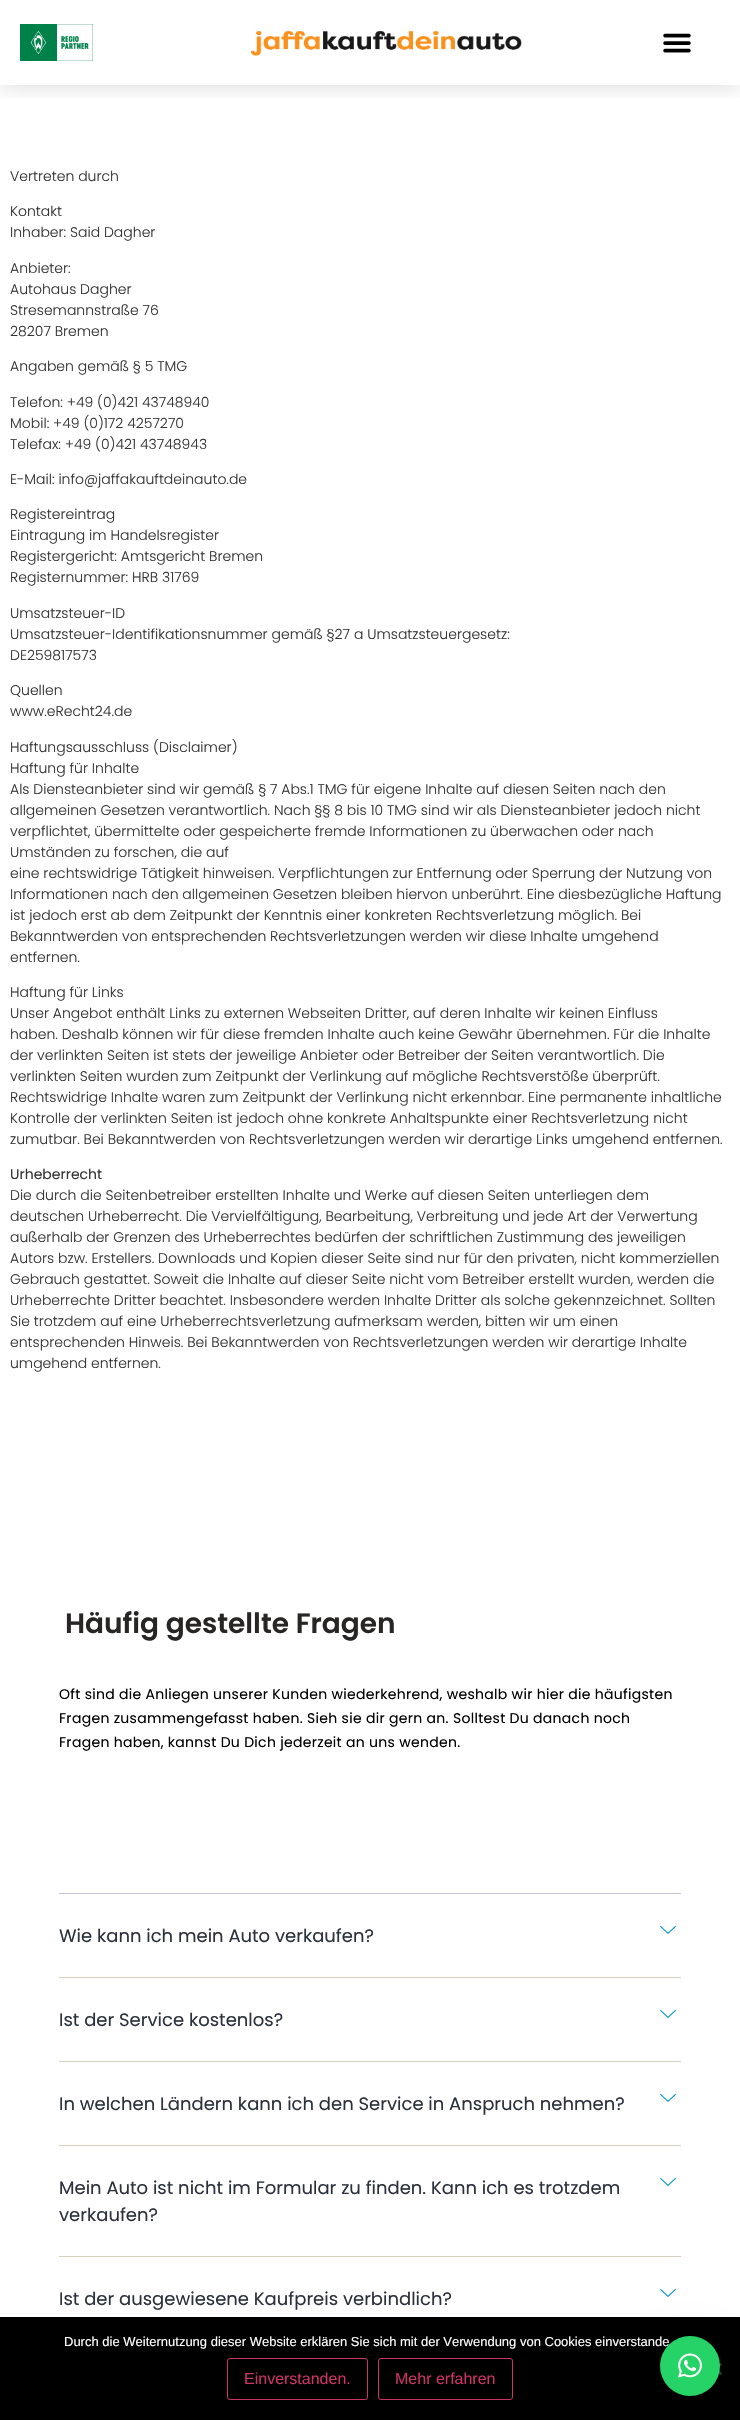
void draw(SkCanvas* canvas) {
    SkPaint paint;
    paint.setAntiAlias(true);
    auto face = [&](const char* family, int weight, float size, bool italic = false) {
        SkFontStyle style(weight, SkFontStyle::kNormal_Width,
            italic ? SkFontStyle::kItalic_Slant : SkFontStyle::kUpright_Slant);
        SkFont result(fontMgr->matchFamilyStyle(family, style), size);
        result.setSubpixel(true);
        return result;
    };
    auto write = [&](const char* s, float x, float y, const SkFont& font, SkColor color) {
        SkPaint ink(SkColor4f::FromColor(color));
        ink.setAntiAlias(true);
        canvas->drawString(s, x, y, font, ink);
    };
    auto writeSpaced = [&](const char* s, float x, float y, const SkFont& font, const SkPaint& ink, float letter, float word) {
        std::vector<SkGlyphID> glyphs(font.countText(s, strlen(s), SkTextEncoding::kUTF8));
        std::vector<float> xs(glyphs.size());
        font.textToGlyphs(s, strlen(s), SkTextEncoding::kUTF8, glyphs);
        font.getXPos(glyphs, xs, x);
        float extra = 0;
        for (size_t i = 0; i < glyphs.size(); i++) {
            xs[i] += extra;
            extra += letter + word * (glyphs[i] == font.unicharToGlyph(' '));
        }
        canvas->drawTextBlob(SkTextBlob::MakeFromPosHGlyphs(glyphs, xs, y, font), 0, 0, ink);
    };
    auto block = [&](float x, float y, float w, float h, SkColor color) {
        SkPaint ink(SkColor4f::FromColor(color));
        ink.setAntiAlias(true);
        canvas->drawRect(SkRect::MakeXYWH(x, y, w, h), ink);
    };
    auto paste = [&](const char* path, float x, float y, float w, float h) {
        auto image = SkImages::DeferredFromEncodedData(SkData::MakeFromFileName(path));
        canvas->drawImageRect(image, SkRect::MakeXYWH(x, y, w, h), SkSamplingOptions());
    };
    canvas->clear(SK_ColorWHITE);
    canvas->save();
    canvas->clipRect(SkRect::MakeXYWH(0, 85, 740, 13));
    paint.setColor(SkColorSetARGB(38, 0, 0, 0));
    paint.setMaskFilter(SkMaskFilter::MakeBlur(kNormal_SkBlurStyle, 12));
    canvas->drawRect(SkRect::MakeXYWH(0, 0, 740, 85), paint);
    paint.setMaskFilter(nullptr);
    canvas->restore();
    paste("pic1.png", 20, 24, 73, 37);
    paste("pic2.png", 251, 31, 271, 25);
    paste("pic3.png", 663, 33, 28, 20);
    auto kFont1 = face("Poppins", 300, 14);
    write("Vertreten durch", 10, 181, kFont1, SkColorSetRGB(53, 53, 53));
    write("Kontakt", 10, 216, kFont1, SkColorSetRGB(53, 53, 53));
    write("Inhaber: Said Dagher", 10, 237, kFont1, SkColorSetRGB(53, 53, 53));
    write("Anbieter:", 10, 273, kFont1, SkColorSetRGB(53, 53, 53));
    write("Autohaus Dagher", 10, 294, kFont1, SkColorSetRGB(53, 53, 53));
    write("Stresemannstraße 76", 10, 315, kFont1, SkColorSetRGB(53, 53, 53));
    write("28207 Bremen", 10, 336, kFont1, SkColorSetRGB(53, 53, 53));
    write("Angaben gemäß § 5 TMG", 10, 371, kFont1, SkColorSetRGB(53, 53, 53));
    write("Telefon: +49 (0)421 43748940", 10, 407, kFont1, SkColorSetRGB(53, 53, 53));
    write("Mobil: +49 (0)172 4257270", 10, 428, kFont1, SkColorSetRGB(53, 53, 53));
    write("Telefax: +49 (0)421 43748943", 10, 449, kFont1, SkColorSetRGB(53, 53, 53));
    write("E-Mail: info@jaffakauftdeinauto.de", 10, 484, kFont1, SkColorSetRGB(53, 53, 53));
    write("Registereintrag", 10, 519, kFont1, SkColorSetRGB(53, 53, 53));
    write("Eintragung im Handelsregister", 10, 540, kFont1, SkColorSetRGB(53, 53, 53));
    write("Registergericht: Amtsgericht Bremen", 10, 561, kFont1, SkColorSetRGB(53, 53, 53));
    write("Registernummer: HRB 31769", 10, 582, kFont1, SkColorSetRGB(53, 53, 53));
    write("Umsatzsteuer-ID", 10, 618, kFont1, SkColorSetRGB(53, 53, 53));
    write("Umsatzsteuer-Identifikationsnummer gemäß §27 a Umsatzsteuergesetz:", 10, 639, kFont1, SkColorSetRGB(53, 53, 53));
    write("DE259817573", 10, 660, kFont1, SkColorSetRGB(53, 53, 53));
    write("Quellen", 10, 695, kFont1, SkColorSetRGB(53, 53, 53));
    write("www.eRecht24.de", 10, 716, kFont1, SkColorSetRGB(53, 53, 53));
    write("Haftungsausschluss (Disclaimer)", 10, 752, kFont1, SkColorSetRGB(53, 53, 53));
    write("Haftung für Inhalte", 10, 773, kFont1, SkColorSetRGB(53, 53, 53));
    write("Als Diensteanbieter sind wir gemäß § 7 Abs.1 TMG für eigene Inhalte auf diesen Seiten nach den", 10, 794, kFont1, SkColorSetRGB(53, 53, 53));
    write("allgemeinen Gesetzen verantwortlich. Nach §§ 8 bis 10 TMG sind wir als Diensteanbieter jedoch nicht", 10, 815, kFont1, SkColorSetRGB(53, 53, 53));
    write("verpflichtet, übermittelte oder gespeicherte fremde Informationen zu überwachen oder nach", 10, 836, kFont1, SkColorSetRGB(53, 53, 53));
    write("Umständen zu forschen, die auf", 10, 857, kFont1, SkColorSetRGB(53, 53, 53));
    write("eine rechtswidrige Tätigkeit hinweisen. Verpflichtungen zur Entfernung oder Sperrung der Nutzung von", 10, 878, kFont1, SkColorSetRGB(53, 53, 53));
    write("Informationen nach den allgemeinen Gesetzen bleiben hiervon unberührt. Eine diesbezügliche Haftung", 10, 899, kFont1, SkColorSetRGB(53, 53, 53));
    write("ist jedoch erst ab dem Zeitpunkt der Kenntnis einer konkreten Rechtsverletzung möglich. Bei", 10, 920, kFont1, SkColorSetRGB(53, 53, 53));
    write("Bekanntwerden von entsprechenden Rechtsverletzungen werden wir diese Inhalte umgehend", 10, 941, kFont1, SkColorSetRGB(53, 53, 53));
    write("entfernen.", 10, 962, kFont1, SkColorSetRGB(53, 53, 53));
    write("Haftung für Links", 10, 997, kFont1, SkColorSetRGB(53, 53, 53));
    write("Unser Angebot enthält Links zu externen Webseiten Dritter, auf deren Inhalte wir keinen Einfluss", 10, 1018, kFont1, SkColorSetRGB(53, 53, 53));
    write("haben. Deshalb können wir für diese fremden Inhalte auch keine Gewähr übernehmen. Für die Inhalte", 10, 1039, kFont1, SkColorSetRGB(53, 53, 53));
    write("der verlinkten Seiten ist stets der jeweilige Anbieter oder Betreiber der Seiten verantwortlich. Die", 10, 1060, kFont1, SkColorSetRGB(53, 53, 53));
    write("verlinkten Seiten wurden zum Zeitpunkt der Verlinkung auf mögliche Rechtsverstöße überprüft.", 10, 1081, kFont1, SkColorSetRGB(53, 53, 53));
    write("Rechtswidrige Inhalte waren zum Zeitpunkt der Verlinkung nicht erkennbar. Eine permanente inhaltliche", 10, 1102, kFont1, SkColorSetRGB(53, 53, 53));
    write("Kontrolle der verlinkten Seiten ist jedoch ohne konkrete Anhaltspunkte einer Rechtsverletzung nicht", 10, 1123, kFont1, SkColorSetRGB(53, 53, 53));
    write("zumutbar. Bei Bekanntwerden von Rechtsverletzungen werden wir derartige Links umgehend entfernen.", 10, 1144, kFont1, SkColorSetRGB(53, 53, 53));
    auto kFont2 = face("Poppins", 400, 14);
    write("Urheberrecht", 10, 1179, kFont2, SkColorSetRGB(53, 53, 53));
    write("Die durch die Seitenbetreiber erstellten Inhalte und Werke auf diesen Seiten unterliegen dem", 10, 1200, kFont1, SkColorSetRGB(53, 53, 53));
    write("deutschen Urheberrecht. Die Vervielfältigung, Bearbeitung, Verbreitung und jede Art der Verwertung", 10, 1221, kFont1, SkColorSetRGB(53, 53, 53));
    write("außerhalb der Grenzen des Urheberrechtes bedürfen der schriftlichen Zustimmung des jeweiligen", 10, 1242, kFont1, SkColorSetRGB(53, 53, 53));
    write("Autors bzw. Erstellers. Downloads und Kopien dieser Seite sind nur für den privaten, nicht kommerziellen", 10, 1263, kFont1, SkColorSetRGB(53, 53, 53));
    write("Gebrauch gestattet. Soweit die Inhalte auf dieser Seite nicht vom Betreiber erstellt wurden, werden die", 10, 1284, kFont1, SkColorSetRGB(53, 53, 53));
    write("Urheberrechte Dritter beachtet. Insbesondere werden Inhalte Dritter als solche gekennzeichnet. Sollten", 10, 1305, kFont1, SkColorSetRGB(53, 53, 53));
    write("Sie trotzdem auf eine Urheberrechtsverletzung aufmerksam werden, bitten wir um einen", 10, 1326, kFont1, SkColorSetRGB(53, 53, 53));
    write("entsprechenden Hinweis. Bei Bekanntwerden von Rechtsverletzungen werden wir derartige Inhalte", 10, 1347, kFont1, SkColorSetRGB(53, 53, 53));
    write("umgehend entfernen.", 10, 1368, kFont1, SkColorSetRGB(53, 53, 53));
    auto kFont3 = face("Poppins", 600, 28);
    write("Häufig gestellte Fragen", 65, 1633, kFont3, SkColorSetRGB(39, 38, 37));
    paint.setColor(SK_ColorBLACK);
    writeSpaced("Oft sind die Anliegen unserer Kunden wiederkehrend, weshalb wir hier die häufigsten", 59, 1699, kFont2, paint, 0.3f, 0);
    writeSpaced("Fragen zusammengefasst haben. Sieh sie dir gern an. Solltest Du danach noch", 59, 1723, kFont2, paint, 0.3f, 0);
    writeSpaced("Fragen haben, kannst Du Dich jederzeit an uns wenden.", 59, 1747, kFont2, paint, 0.3f, 0);
    block(59, 1893, 622, 1, SkColorSetRGB(190, 197, 214));
    block(59, 1977, 622, 1, SkColorSetRGB(214, 208, 190));
    auto kFont4 = face("Poppins", 400, 18);
    write("Wie kann ich mein Auto verkaufen?", 59, 1942, kFont4, SkColorSetRGB(43, 50, 61));
    paste("pic4.png", 660, 1926, 16, 8);
    block(59, 2061, 622, 1, SkColorSetRGB(214, 208, 190));
    write("Ist der Service kostenlos?", 59, 2026, kFont4, SkColorSetRGB(43, 50, 61));
    paste("pic4.png", 660, 2010, 16, 8);
    block(59, 2145, 622, 1, SkColorSetRGB(214, 208, 190));
    write("In welchen Ländern kann ich den Service in Anspruch nehmen?", 59, 2110, kFont4, SkColorSetRGB(43, 50, 61));
    paste("pic4.png", 660, 2094, 16, 8);
    block(59, 2256, 622, 1, SkColorSetRGB(214, 208, 190));
    write("Mein Auto ist nicht im Formular zu finden. Kann ich es trotzdem", 59, 2194, kFont4, SkColorSetRGB(43, 50, 61));
    paste("pic4.png", 660, 2178, 16, 8);
    write("verkaufen?", 59, 2221, kFont4, SkColorSetRGB(43, 50, 61));
    write("Ist der ausgewiesene Kaufpreis verbindlich?", 59, 2305, kFont4, SkColorSetRGB(43, 50, 61));
    paste("pic4.png", 660, 2289, 16, 8);
    block(0, 2317, 740, 103, SK_ColorBLACK);
    auto kFont5 = face("Liberation Sans", 400, 13);
    write("Durch die Weiternutzung dieser Website erklären Sie sich mit der Verwendung von Cookies einverstande", 64, 2346, kFont5, SK_ColorWHITE);
    paint.setColor(SkColorSetRGB(64, 64, 64));
    canvas->drawPath(SkPathBuilder().moveTo(720.5f, 2363).lineTo(722, 2364.5f).lineTo(711.5f, 2375).lineTo(710, 2373.5f).close().detach(), paint);
    canvas->drawPath(SkPathBuilder().moveTo(710, 2364.5f).lineTo(711.5f, 2363).lineTo(722, 2373.5f).lineTo(720.5f, 2375).close().detach(), paint);
    paint.setStyle(SkPaint::kStroke_Style);
    paint.setStrokeWidth(1);
    paint.setColor(SkColorSetRGB(204, 51, 102));
    canvas->drawRoundRect(SkRect::MakeXYWH(227.5f, 2358.5f, 140, 41), 2.5f, 2.5f, paint);
    auto kFont6 = face("Liberation Sans", 400, 16);
    write("Einverstanden.", 244, 2384, kFont6, SkColorSetRGB(204, 51, 102));
    canvas->drawRoundRect(SkRect::MakeXYWH(378.5f, 2358.5f, 134, 41), 2.5f, 2.5f, paint);
    write("Mehr erfahren", 395, 2384, kFont6, SkColorSetRGB(204, 51, 102));
    paint.setStyle(SkPaint::kFill_Style);
    paint.setColor(SkColorSetARGB(41, 0, 0, 0));
    paint.setMaskFilter(SkMaskFilter::MakeBlur(kNormal_SkBlurStyle, 16));
    canvas->drawRoundRect(SkRect::MakeXYWH(660, 2338, 60, 60), 30, 30, paint);
    paint.setMaskFilter(nullptr);
    paint.setColor(SkColorSetRGB(37, 211, 102));
    canvas->drawCircle(690, 2366, 30, paint);
    paste("pic5.png", 678, 2353, 24, 25);
}
